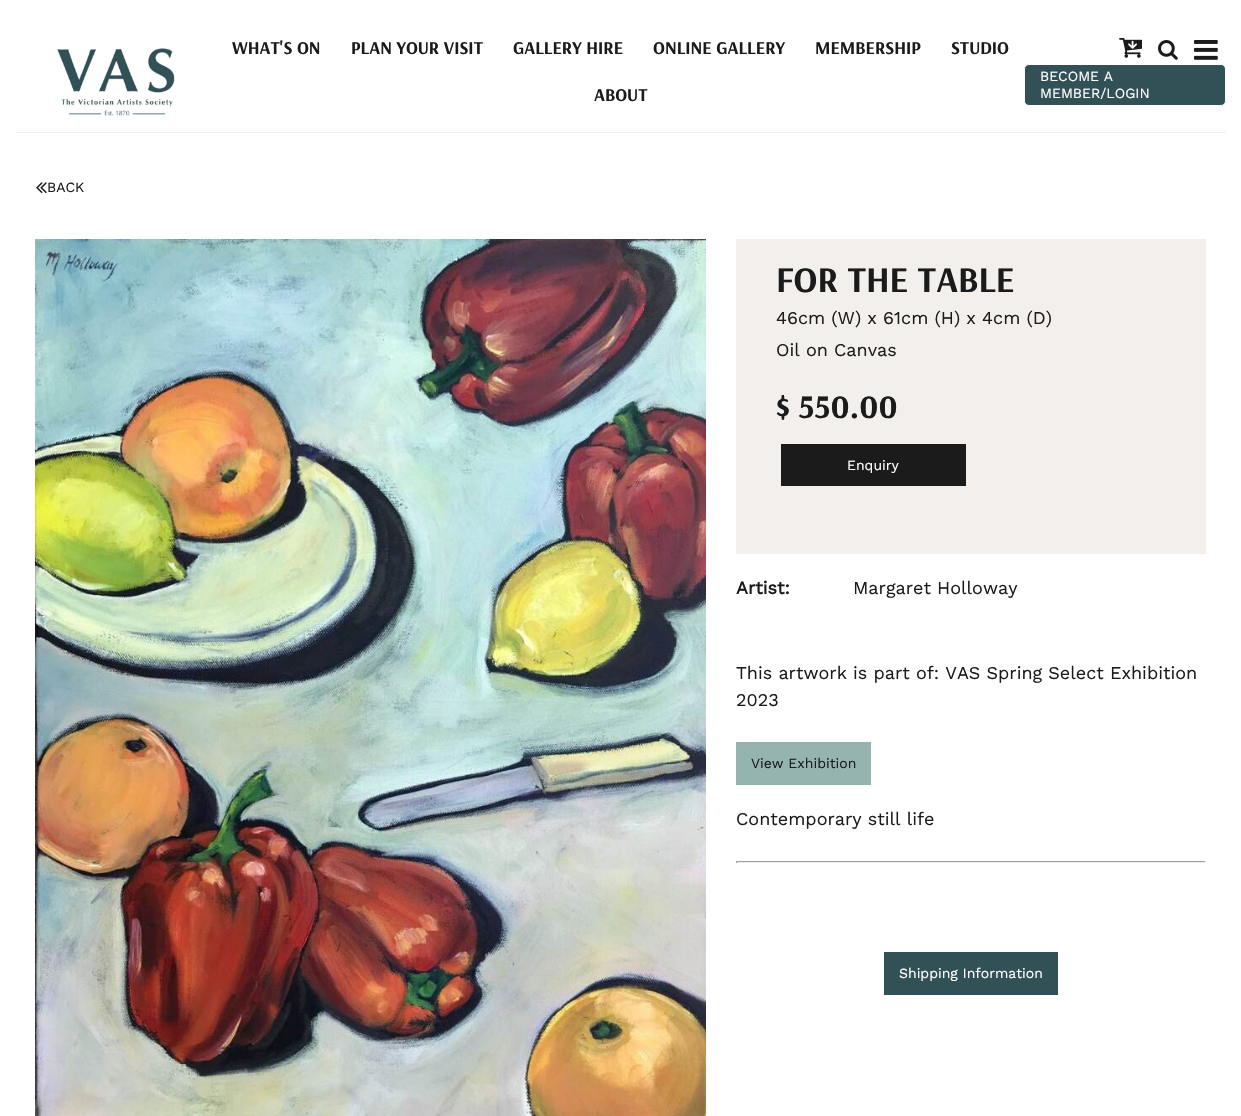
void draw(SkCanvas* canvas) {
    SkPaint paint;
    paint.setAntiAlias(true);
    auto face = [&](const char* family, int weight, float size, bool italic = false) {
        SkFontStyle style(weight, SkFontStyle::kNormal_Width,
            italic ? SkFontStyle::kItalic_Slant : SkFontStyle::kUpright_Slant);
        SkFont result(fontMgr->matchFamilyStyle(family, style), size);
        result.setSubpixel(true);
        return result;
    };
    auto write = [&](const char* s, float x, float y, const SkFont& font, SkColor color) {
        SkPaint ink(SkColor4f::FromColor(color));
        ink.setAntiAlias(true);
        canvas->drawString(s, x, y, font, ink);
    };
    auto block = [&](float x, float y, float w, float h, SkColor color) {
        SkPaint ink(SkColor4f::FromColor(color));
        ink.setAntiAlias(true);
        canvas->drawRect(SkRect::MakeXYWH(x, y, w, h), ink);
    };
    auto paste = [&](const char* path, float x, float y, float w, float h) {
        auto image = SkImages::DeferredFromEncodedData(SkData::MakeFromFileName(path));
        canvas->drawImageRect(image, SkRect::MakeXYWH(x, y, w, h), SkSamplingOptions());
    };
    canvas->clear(SK_ColorWHITE);
    paste("pic1.png", 57, 48, 118, 68);
    auto kFont1 = face("Arsenal", 700, 18);
    write("WHAT'S ON", 232, 54, kFont1, SkColorSetRGB(27, 27, 27));
    write("PLAN YOUR VISIT", 351, 54, kFont1, SkColorSetRGB(27, 27, 27));
    write("GALLERY HIRE", 513, 54, kFont1, SkColorSetRGB(27, 27, 27));
    write("ONLINE GALLERY", 653, 54, kFont1, SkColorSetRGB(27, 27, 27));
    write("MEMBERSHIP", 815, 54, kFont1, SkColorSetRGB(27, 27, 27));
    write("STUDIO", 951, 54, kFont1, SkColorSetRGB(27, 27, 27));
    write("ABOUT", 594, 101, kFont1, SkColorSetRGB(27, 27, 27));
    paste("pic2.png", 1119, 38, 23, 20);
    paste("pic3.png", 1158, 40, 20, 20);
    paste("pic4.png", 1194, 40, 24, 20);
    paint.setColor(SkColorSetRGB(49, 81, 87));
    canvas->drawRoundRect(SkRect::MakeXYWH(1024.5f, 64.5f, 201, 41), 4.5f, 4.5f, paint);
    paint.setStyle(SkPaint::kStroke_Style);
    paint.setStrokeWidth(1);
    paint.setColor(SK_ColorWHITE);
    canvas->drawRoundRect(SkRect::MakeXYWH(1024.5f, 64.5f, 201, 41), 4.5f, 4.5f, paint);
    auto kFont2 = face("Work Sans", 400, 14);
    write("BECOME A", 1040, 81, kFont2, SK_ColorWHITE);
    write("MEMBER/LOGIN", 1040, 98, kFont2, SK_ColorWHITE);
    block(15, 132, 1211, 1, SkColorSetRGB(242, 239, 236));
    paste("pic5.png", 36, 182, 11, 12);
    write("BACK", 47, 192, kFont2, SkColorSetRGB(27, 27, 27));
    paste("pic6.png", 35, 239, 671, 877);
    block(736, 239, 470, 315, SkColorSetRGB(242, 239, 236));
    auto kFont3 = face("Arsenal", 700, 36);
    write("FOR THE TABLE", 776, 292, kFont3, SkColorSetRGB(27, 27, 27));
    auto kFont4 = face("Work Sans", 400, 18);
    write("46cm (W) x 61cm (H) x 4cm (D)", 776, 324, kFont4, SkColorSetRGB(27, 27, 27));
    write("Oil on Canvas", 776, 356, kFont4, SkColorSetRGB(27, 27, 27));
    auto kFont5 = face("Arsenal", 700, 33);
    write("$ 550.00", 776, 418, kFont5, SkColorSetRGB(27, 27, 27));
    block(781, 444, 185, 42, SkColorSetRGB(27, 27, 27));
    write("Enquiry", 847, 470, kFont2, SK_ColorWHITE);
    auto kFont6 = face("Work Sans", 700, 18);
    write("Artist:", 736, 594, kFont6, SkColorSetRGB(27, 27, 27));
    write("Margaret Holloway", 853, 594, kFont4, SkColorSetRGB(27, 27, 27));
    write("This artwork is part of: VAS Spring Select Exhibition", 736, 679, kFont4, SkColorSetRGB(27, 27, 27));
    write("2023", 736, 706, kFont4, SkColorSetRGB(27, 27, 27));
    block(736, 742, 135, 43, SkColorSetRGB(149, 180, 175));
    write("View Exhibition", 751, 768, kFont2, SkColorSetRGB(27, 27, 27));
    write("Contemporary still life", 736, 825, kFont4, SkColorSetRGB(27, 27, 27));
    block(736, 861, 470, 1, SkColorSetRGB(159, 159, 159));
    block(1205, 861, 1, 2, SkColorSetRGB(238, 238, 238));
    block(736, 862, 470, 1, SkColorSetRGB(238, 238, 238));
    block(736, 861, 1, 2, SkColorSetRGB(159, 159, 159));
    block(884, 952, 174, 43, SkColorSetRGB(49, 81, 87));
    write("Shipping Information", 899, 978, kFont2, SK_ColorWHITE);
}
